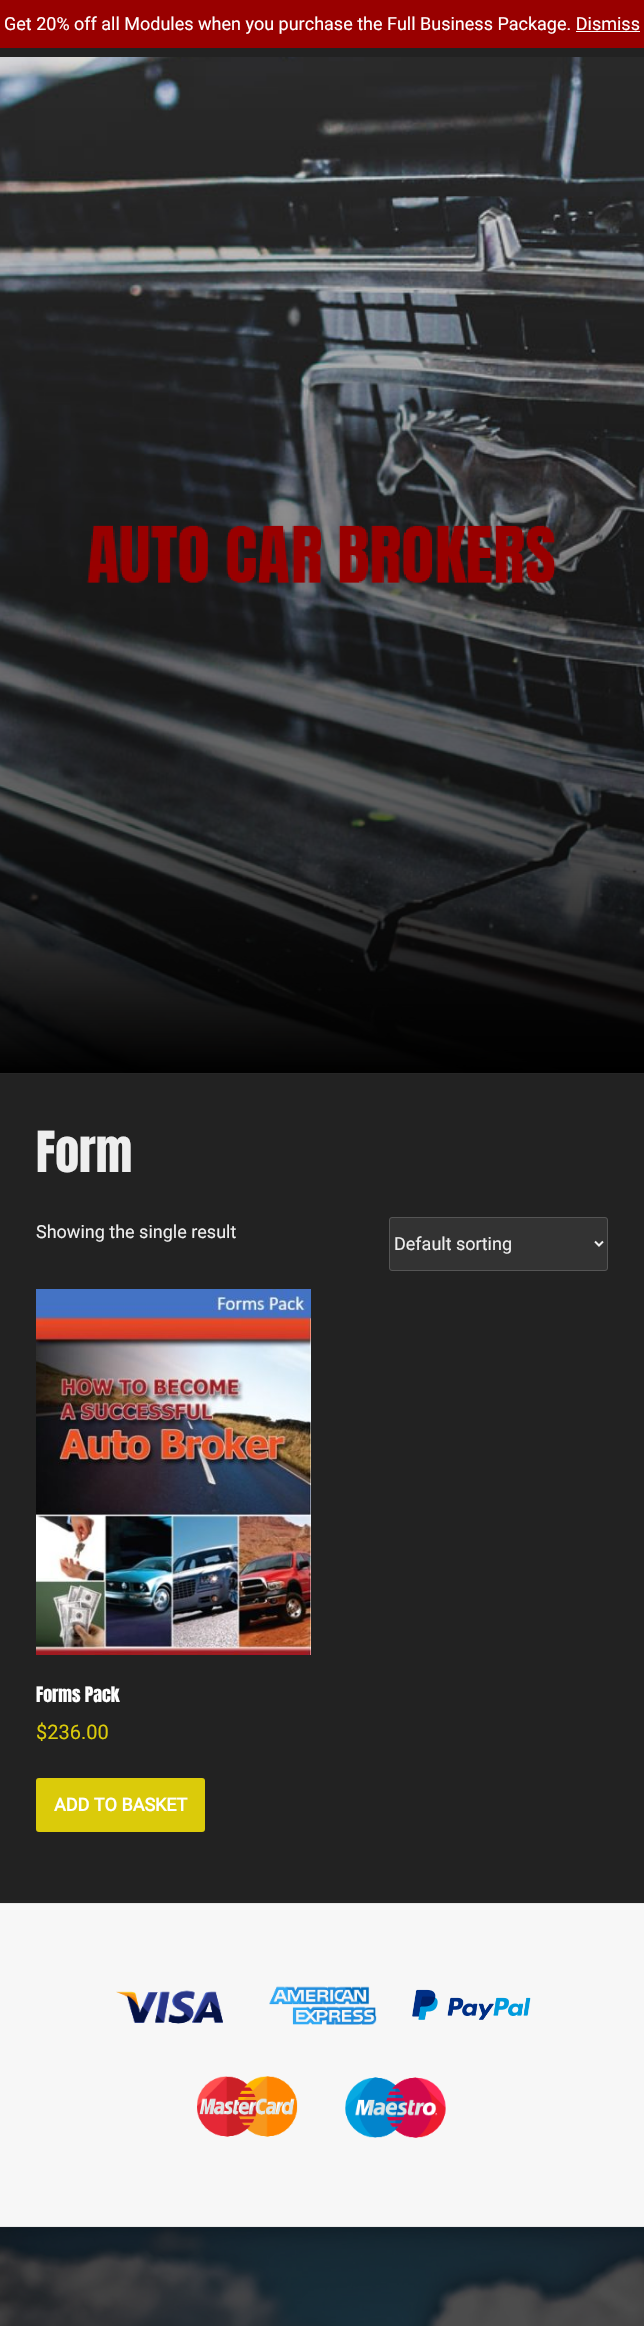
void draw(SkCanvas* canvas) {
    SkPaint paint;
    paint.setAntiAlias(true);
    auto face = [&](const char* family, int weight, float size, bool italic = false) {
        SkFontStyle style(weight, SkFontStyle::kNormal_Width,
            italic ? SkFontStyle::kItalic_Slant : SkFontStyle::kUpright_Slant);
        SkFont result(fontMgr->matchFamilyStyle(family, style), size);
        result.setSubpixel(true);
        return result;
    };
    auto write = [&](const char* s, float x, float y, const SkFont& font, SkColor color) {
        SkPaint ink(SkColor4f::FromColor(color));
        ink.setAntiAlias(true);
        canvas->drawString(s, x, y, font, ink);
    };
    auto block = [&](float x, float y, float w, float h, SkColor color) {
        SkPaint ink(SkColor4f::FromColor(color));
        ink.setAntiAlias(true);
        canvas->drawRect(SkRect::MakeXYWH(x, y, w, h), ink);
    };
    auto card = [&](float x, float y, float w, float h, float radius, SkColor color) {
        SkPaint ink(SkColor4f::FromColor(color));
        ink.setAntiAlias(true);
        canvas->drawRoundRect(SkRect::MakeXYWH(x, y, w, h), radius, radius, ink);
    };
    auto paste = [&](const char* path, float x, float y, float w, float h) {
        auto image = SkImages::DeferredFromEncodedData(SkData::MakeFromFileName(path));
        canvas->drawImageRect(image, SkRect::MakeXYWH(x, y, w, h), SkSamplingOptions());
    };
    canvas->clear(SkColorSetRGB(34, 34, 34));
    block(0, 0, 644, 48, SkColorSetRGB(153, 0, 0));
    auto kFont1 = face("Roboto", 400, 18);
    write("Get 20% off all Modules when you purchase the Full Business Package. Dismiss", 4, 30, kFont1, SK_ColorWHITE);
    block(576, 31, 64, 1, SK_ColorWHITE);
    block(0, 1073, 644, 1, SkColorSetRGB(38, 38, 38));
    paste("pic1.png", 0, 57, 644, 1016);
    paste("pic2.png", 86, 525, 470, 58);
    auto kFont2 = face("Anton", 400, 48);
    write("Form", 36, 1172, kFont2, SkColorSetRGB(238, 238, 238));
    write("Showing the single result", 36, 1238, kFont1, SkColorSetRGB(238, 238, 238));
    paint.setColor(SkColorSetRGB(51, 51, 51));
    canvas->drawRoundRect(SkRect::MakeXYWH(389.5f, 1217.5f, 218, 53), 2.5f, 2.5f, paint);
    paint.setStyle(SkPaint::kStroke_Style);
    paint.setStrokeWidth(1);
    paint.setColor(SkColorSetRGB(85, 85, 85));
    canvas->drawRoundRect(SkRect::MakeXYWH(389.5f, 1217.5f, 218, 53), 2.5f, 2.5f, paint);
    paint.setStrokeWidth(2);
    paint.setColor(SkColorSetRGB(238, 238, 238));
    canvas->drawPath(SkPathBuilder().moveTo(595, 1241.5f).lineTo(599, 1245.5f).lineTo(603, 1241.5f).detach(), paint);
    write("Default sorting", 394, 1250, kFont1, SkColorSetRGB(238, 238, 238));
    paste("pic3.png", 36, 1289, 275, 366);
    auto kFont3 = face("Anton", 400, 18);
    write("Forms Pack", 36, 1702, kFont3, SK_ColorWHITE);
    auto kFont4 = face("Roboto", 400, 20);
    write("$236.00", 36, 1739, kFont4, SkColorSetRGB(219, 203, 10));
    card(36, 1778, 169, 54, 3, SkColorSetRGB(219, 203, 10));
    auto kFont5 = face("Roboto", 700, 18);
    write("ADD TO BASKET", 54, 1811, kFont5, SK_ColorWHITE);
    block(0, 1904, 644, 322, SkColorSetRGB(247, 247, 247));
    block(0, 1903, 644, 1, SkColorSetRGB(234, 234, 234));
    block(0, 2226, 644, 1, SkColorSetRGB(234, 234, 234));
    paste("pic4.png", 116, 1990, 107, 34);
    paste("pic5.png", 269, 1986, 108, 39);
    paste("pic6.png", 412, 1989, 119, 31);
    paste("pic7.png", 197, 2076, 101, 61);
    paste("pic8.png", 345, 2077, 101, 61);
    paste("pic9.png", 0, 2227, 644, 99);
}
